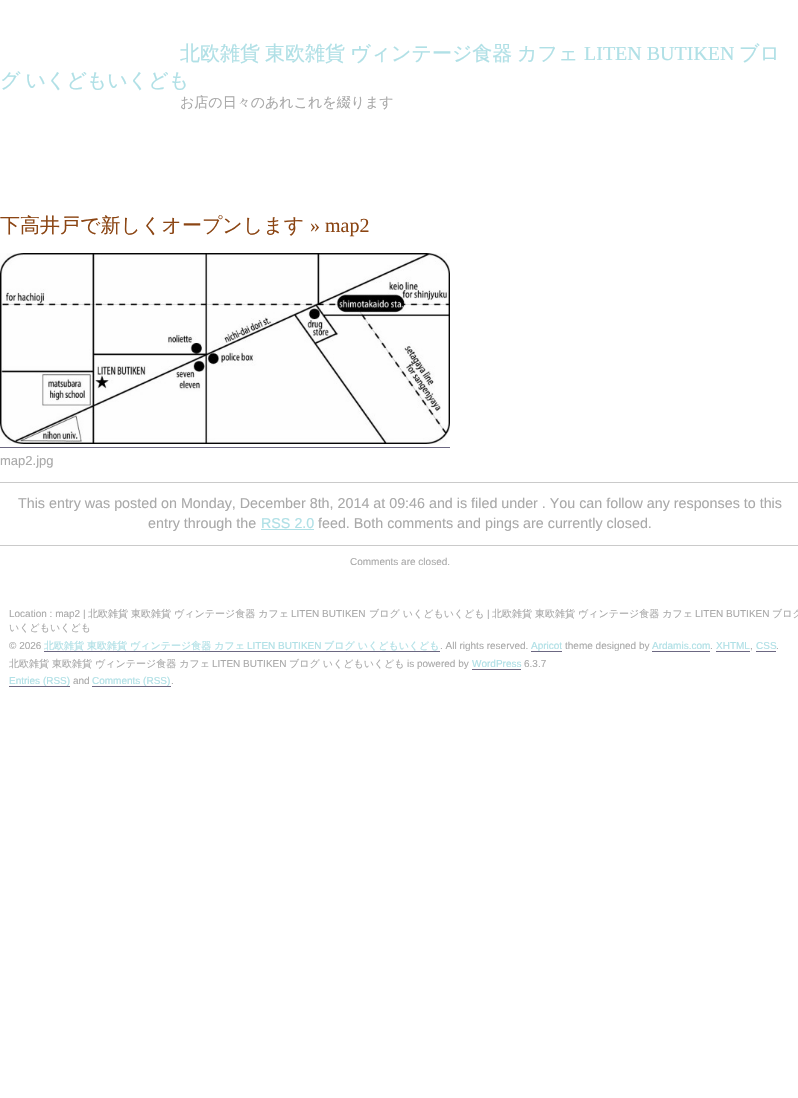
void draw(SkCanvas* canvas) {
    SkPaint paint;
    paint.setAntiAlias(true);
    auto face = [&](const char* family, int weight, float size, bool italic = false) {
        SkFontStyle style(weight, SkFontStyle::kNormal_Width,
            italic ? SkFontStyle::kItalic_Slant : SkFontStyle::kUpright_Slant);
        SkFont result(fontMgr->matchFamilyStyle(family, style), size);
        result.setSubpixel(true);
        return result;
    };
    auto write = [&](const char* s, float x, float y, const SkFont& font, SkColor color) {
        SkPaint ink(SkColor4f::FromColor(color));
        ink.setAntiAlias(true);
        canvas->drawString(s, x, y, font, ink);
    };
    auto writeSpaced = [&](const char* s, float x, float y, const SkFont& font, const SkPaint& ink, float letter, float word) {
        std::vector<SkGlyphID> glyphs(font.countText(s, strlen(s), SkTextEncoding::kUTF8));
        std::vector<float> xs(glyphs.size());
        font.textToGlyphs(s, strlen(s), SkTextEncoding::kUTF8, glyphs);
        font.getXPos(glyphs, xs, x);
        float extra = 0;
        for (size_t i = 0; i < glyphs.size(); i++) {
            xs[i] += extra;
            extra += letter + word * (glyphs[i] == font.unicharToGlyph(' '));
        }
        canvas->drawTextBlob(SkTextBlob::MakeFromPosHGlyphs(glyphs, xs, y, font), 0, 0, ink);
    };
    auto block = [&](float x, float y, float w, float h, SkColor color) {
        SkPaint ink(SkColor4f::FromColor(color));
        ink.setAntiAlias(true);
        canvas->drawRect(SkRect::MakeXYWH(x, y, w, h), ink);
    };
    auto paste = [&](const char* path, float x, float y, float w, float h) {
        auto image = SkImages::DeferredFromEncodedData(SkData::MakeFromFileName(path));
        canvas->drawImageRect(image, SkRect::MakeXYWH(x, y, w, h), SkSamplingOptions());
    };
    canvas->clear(SK_ColorWHITE);
    auto kFont1 = face("WenQuanYi Zen Hei", 500, 20);
    write("北欧雑貨", 180, 60, kFont1, SkColorSetRGB(176, 224, 230));
    write("東欧雑貨", 265, 60, kFont1, SkColorSetRGB(176, 224, 230));
    write("ヴィンテージ食器", 350, 60, kFont1, SkColorSetRGB(176, 224, 230));
    write("カフェ", 517, 60, kFont1, SkColorSetRGB(176, 224, 230));
    auto kFont2 = face("Liberation Serif", 400, 20);
    write("LITEN BUTIKEN", 584, 60, kFont2, SkColorSetRGB(176, 224, 230));
    write("ブロ", 739, 60, kFont1, SkColorSetRGB(176, 224, 230));
    paint.setColor(SkColorSetRGB(176, 224, 230));
    writeSpaced("グ いくどもいくども", 0, 87, kFont1, paint, 0, -1);
    auto kFont3 = face("WenQuanYi Zen Hei", 500, 14);
    write("お店の日々のあれこれを綴ります", 180, 107, kFont3, SkColorSetRGB(169, 169, 169));
    write("下高井戸で新しくオープンします", 0, 232, kFont1, SkColorSetRGB(139, 69, 19));
    write("» map2", 310, 232, kFont2, SkColorSetRGB(139, 69, 19));
    paste("pic1.png", 0, 253, 450, 191);
    block(0, 447, 450, 1, SkColorSetRGB(108, 104, 130));
    auto kFont4 = face("Liberation Sans", 400, 13);
    write("map2.jpg", 0, 465, kFont4, SkColorSetRGB(169, 169, 169));
    block(0, 482, 798, 1, SkColorSetRGB(202, 202, 202));
    block(0, 545, 798, 1, SkColorSetRGB(202, 202, 202));
    auto kFont5 = face("Liberation Sans", 400, 14.3f);
    write("This entry was posted on Monday, December 8th, 2014 at 09:46 and is filed under . You can follow any responses to this", 18, 508, kFont5, SkColorSetRGB(169, 169, 169));
    write("entry through the", 148, 528, kFont5, SkColorSetRGB(169, 169, 169));
    write("RSS 2.0", 261, 528, kFont5, SkColorSetRGB(176, 224, 230));
    block(261, 529, 53, 1, SkColorSetRGB(176, 224, 230));
    write("feed. Both comments and pings are currently closed.", 318, 528, kFont5, SkColorSetRGB(169, 169, 169));
    auto kFont6 = face("Liberation Sans", 400, 10);
    write("Comments are closed.", 350, 565, kFont6, SkColorSetRGB(169, 169, 169));
    write("Location : map2 |", 9, 617, kFont6, SkColorSetRGB(169, 169, 169));
    auto kFont7 = face("WenQuanYi Zen Hei", 500, 10);
    write("北欧雑貨 東欧雑貨 ヴィンテージ食器 カフェ", 88, 617, kFont7, SkColorSetRGB(169, 169, 169));
    write("LITEN BUTIKEN", 291, 617, kFont6, SkColorSetRGB(169, 169, 169));
    write("ブログ いくどもいくども", 369, 617, kFont7, SkColorSetRGB(169, 169, 169));
    write("|", 487, 617, kFont6, SkColorSetRGB(169, 169, 169));
    write("北欧雑貨 東欧雑貨 ヴィンテージ食器 カフェ", 492, 617, kFont7, SkColorSetRGB(169, 169, 169));
    write("LITEN BUTIKEN", 695, 617, kFont6, SkColorSetRGB(169, 169, 169));
    write("ブログ", 772, 617, kFont7, SkColorSetRGB(169, 169, 169));
    write("いくどもいくども", 9, 631, kFont7, SkColorSetRGB(169, 169, 169));
    write("© 2026", 9, 649, kFont6, SkColorSetRGB(169, 169, 169));
    write("北欧雑貨 東欧雑貨 ヴィンテージ食器 カフェ", 44, 649, kFont7, SkColorSetRGB(176, 224, 230));
    write("LITEN BUTIKEN", 247, 649, kFont6, SkColorSetRGB(176, 224, 230));
    block(44, 651, 396, 1, SkColorSetRGB(108, 104, 130));
    write("ブログ いくどもいくども", 324, 649, kFont7, SkColorSetRGB(176, 224, 230));
    write(". All rights reserved.", 440, 649, kFont6, SkColorSetRGB(169, 169, 169));
    block(531, 651, 31, 1, SkColorSetRGB(108, 104, 130));
    write("Apricot", 531, 649, kFont6, SkColorSetRGB(176, 224, 230));
    write("theme designed by", 565, 649, kFont6, SkColorSetRGB(169, 169, 169));
    write("Ardamis.com", 652, 649, kFont6, SkColorSetRGB(176, 224, 230));
    block(652, 651, 58, 1, SkColorSetRGB(108, 104, 130));
    write(".", 710, 649, kFont6, SkColorSetRGB(169, 169, 169));
    write("XHTML", 716, 649, kFont6, SkColorSetRGB(176, 224, 230));
    block(716, 651, 34, 1, SkColorSetRGB(108, 104, 130));
    write(",", 750, 649, kFont6, SkColorSetRGB(169, 169, 169));
    write("CSS", 756, 649, kFont6, SkColorSetRGB(176, 224, 230));
    block(756, 651, 20, 1, SkColorSetRGB(108, 104, 130));
    write(".", 776, 649, kFont6, SkColorSetRGB(169, 169, 169));
    write("北欧雑貨 東欧雑貨 ヴィンテージ食器 カフェ", 9, 667, kFont7, SkColorSetRGB(169, 169, 169));
    write("LITEN BUTIKEN", 212, 667, kFont6, SkColorSetRGB(169, 169, 169));
    write("ブログ いくどもいくども", 289, 667, kFont7, SkColorSetRGB(169, 169, 169));
    write("is powered by", 407, 667, kFont6, SkColorSetRGB(169, 169, 169));
    write("WordPress", 472, 667, kFont6, SkColorSetRGB(176, 224, 230));
    block(472, 669, 49, 1, SkColorSetRGB(108, 104, 130));
    write("6.3.7", 524, 667, kFont6, SkColorSetRGB(169, 169, 169));
    block(9, 686, 61, 1, SkColorSetRGB(108, 104, 130));
    write("Entries (RSS)", 9, 684, kFont6, SkColorSetRGB(176, 224, 230));
    write("and", 73, 684, kFont6, SkColorSetRGB(169, 169, 169));
    block(92, 686, 79, 1, SkColorSetRGB(108, 104, 130));
    write("Comments (RSS)", 92, 684, kFont6, SkColorSetRGB(176, 224, 230));
    write(".", 171, 684, kFont6, SkColorSetRGB(169, 169, 169));
}
